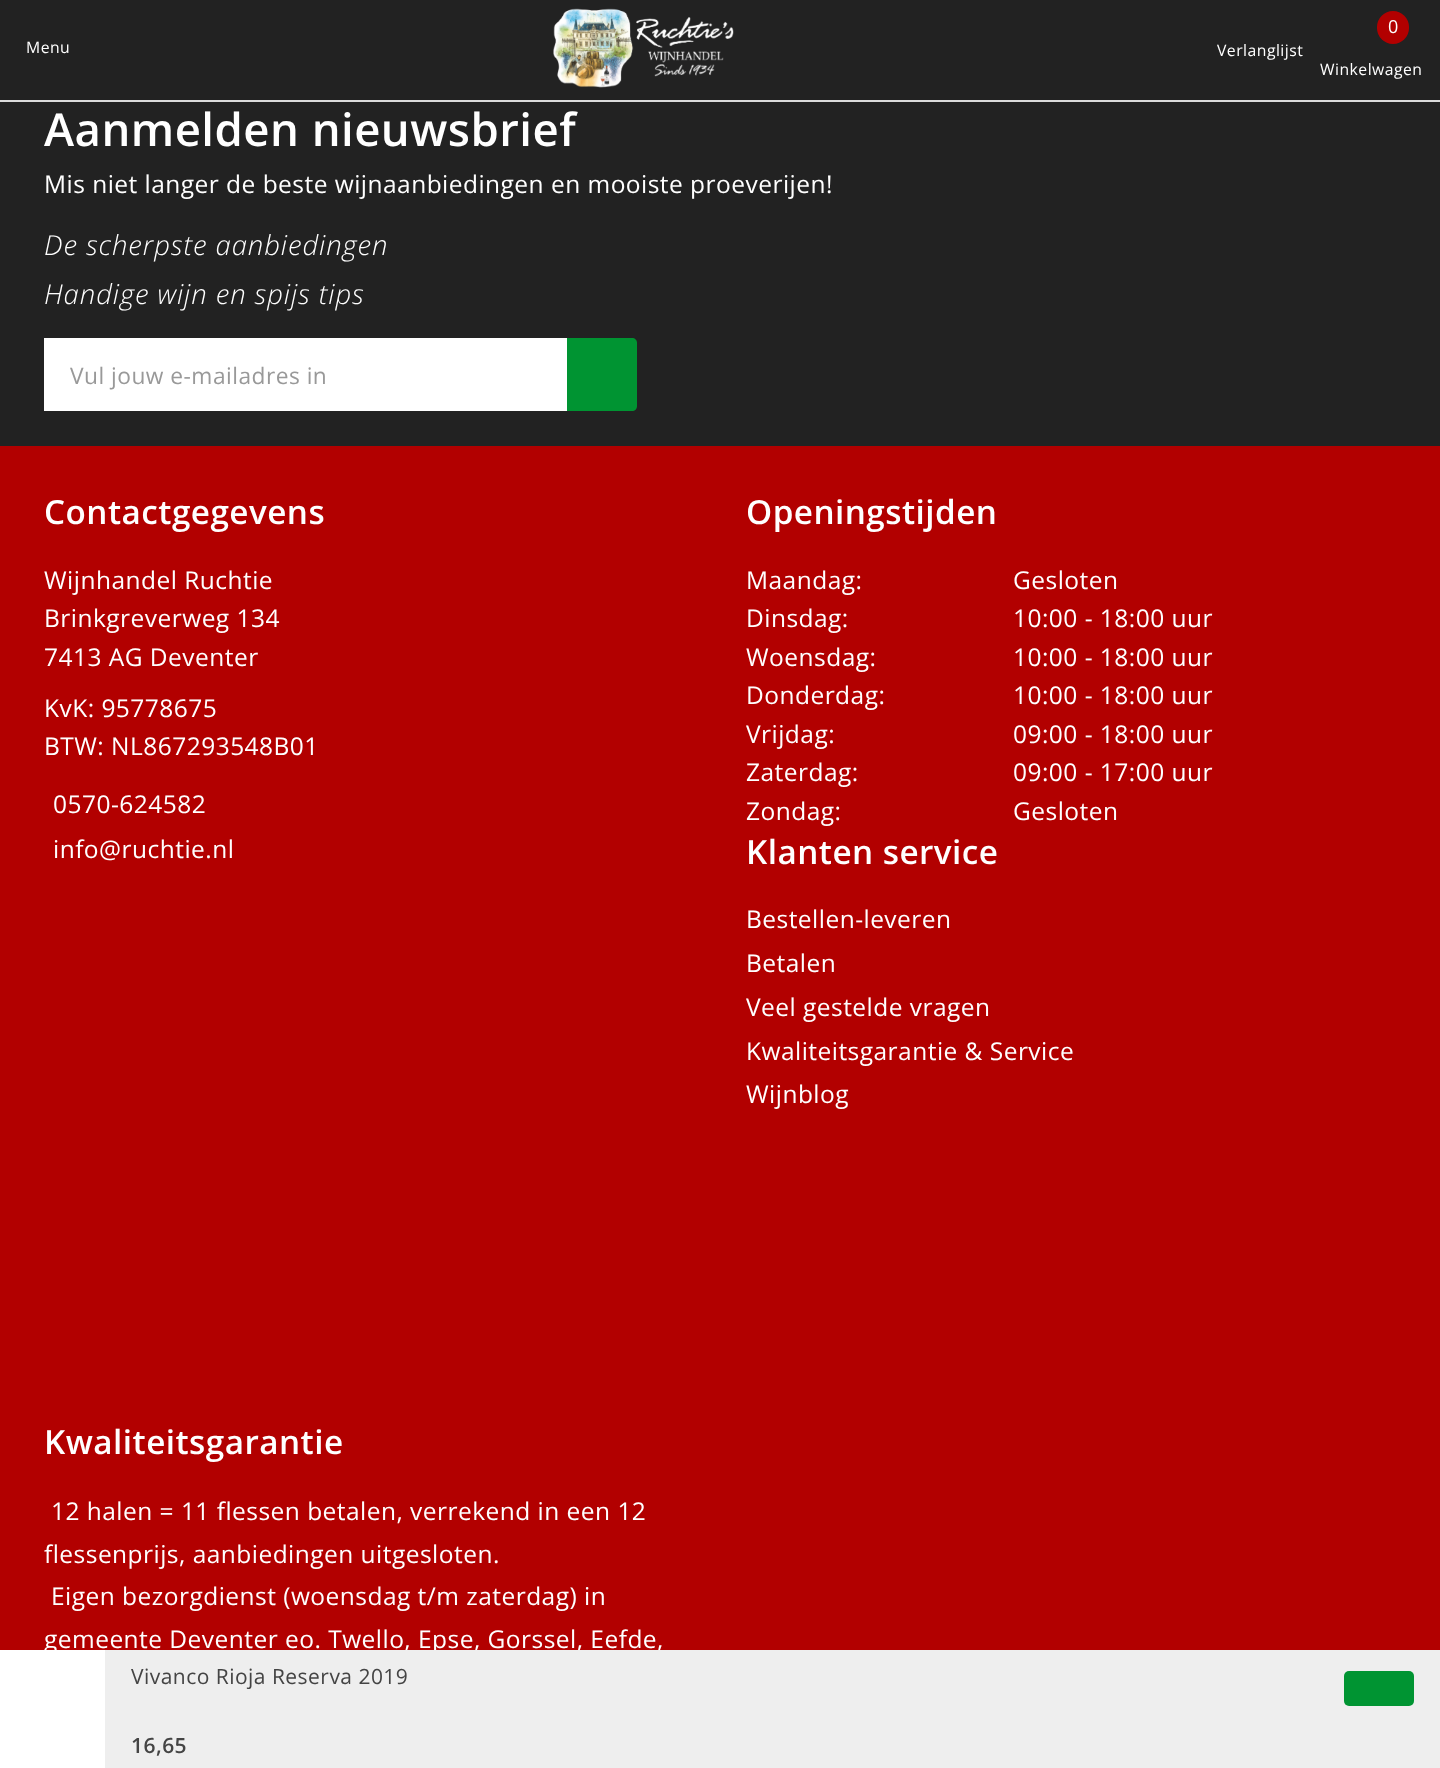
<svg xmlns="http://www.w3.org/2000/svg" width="1440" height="1768">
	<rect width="100%" height="100%" fill="#222222" />
	<rect x="0" y="100" width="1440" height="2" fill="#DBDBDB" />
	<text x="26" y="53" font-family="Open Sans" font-size="15.75" letter-spacing="0.47" fill="#FFFFFF">Menu</text>
	<image x="553" y="8" width="181" height="80" href="assets/img1.png" />
	<text x="1217" y="56" font-family="Open Sans" font-size="15.75" letter-spacing="0.47" fill="#FFFFFF">Verlanglijst</text>
	<rect x="1377" y="11" width="32" height="33" rx="16" fill="#B20000" />
	<text x="1388" y="33" font-family="Open Sans" font-size="18" letter-spacing="0.47" fill="#FFFFFF">0</text>
	<text x="1320" y="75" font-family="Open Sans" font-size="15.75" letter-spacing="0.47" fill="#FFFFFF">Winkelwagen</text>
	<text x="44" y="146" font-family="Open Sans" font-size="45.5" font-weight="600" letter-spacing="0.47" fill="#FFFFFF">Aanmelden nieuwsbrief</text>
	<text x="44" y="193" font-family="Open Sans" font-size="24.5" letter-spacing="0.47" fill="#FFFFFF">Mis niet langer de beste wijnaanbiedingen en mooiste proeverijen!</text>
	<g font-family="Open Sans" font-size="27.5" font-weight="300" font-style="italic" letter-spacing="0.9" fill="#FFFFFF">
		<text x="44" y="255">De scherpste aanbiedingen</text>
		<text x="44" y="304">Handige wijn en spijs tips</text>
	</g>
	<rect x="44" y="338" width="523" height="73" fill="#FFFFFF" />
	<text x="70" y="384" font-family="Open Sans" font-size="22.75" letter-spacing="0.47" fill="#999999">Vul jouw e-mailadres in</text>
	<path d="M567 338H632C635 338 637 340 637 343V406C637 409 635 411 632 411H567Z" fill="#009432" />
	<rect x="0" y="446" width="1440" height="1204" fill="#B20000" />
	<text x="44" y="524" font-family="Open Sans" font-size="33.25" font-weight="600" letter-spacing="0.47" fill="#FFFFFF">Contactgegevens</text>
	<g font-family="Open Sans" font-size="24.5" letter-spacing="0.47" fill="#FFFFFF">
		<text x="44" y="589">Wijnhandel Ruchtie</text>
		<text x="44" y="627">Brinkgreverweg 134</text>
		<text x="44" y="666">7413 AG Deventer</text>
		<text x="44" y="717">KvK: 95778675</text>
		<text x="44" y="755">BTW: NL867293548B01</text>
		<text x="53" y="813">0570-624582</text>
		<text x="53" y="858">info@ruchtie.nl</text>
	</g>
	<text x="746" y="524" font-family="Open Sans" font-size="33.25" font-weight="600" letter-spacing="0.47" fill="#FFFFFF">Openingstijden</text>
	<g font-family="Open Sans" font-size="24.5" letter-spacing="0.47" fill="#FFFFFF">
		<text x="746" y="589">Maandag:</text>
		<text x="1013" y="589">Gesloten</text>
		<text x="746" y="627">Dinsdag:</text>
		<text x="1013" y="627">10:00 - 18:00 uur</text>
		<text x="746" y="666">Woensdag:</text>
		<text x="1013" y="666">10:00 - 18:00 uur</text>
		<text x="746" y="704">Donderdag:</text>
		<text x="1013" y="704">10:00 - 18:00 uur</text>
		<text x="746" y="743">Vrijdag:</text>
		<text x="1013" y="743">09:00 - 18:00 uur</text>
		<text x="746" y="781">Zaterdag:</text>
		<text x="1013" y="781">09:00 - 17:00 uur</text>
		<text x="746" y="820">Zondag:</text>
		<text x="1013" y="820">Gesloten</text>
	</g>
	<text x="746" y="864" font-family="Open Sans" font-size="33.25" font-weight="600" letter-spacing="0.47" fill="#FFFFFF">Klanten service</text>
	<g font-family="Open Sans" font-size="24.5" letter-spacing="0.47" fill="#FFFFFF">
		<text x="746" y="928">Bestellen-leveren</text>
		<text x="746" y="972">Betalen</text>
		<text x="746" y="1016">Veel gestelde vragen</text>
		<text x="746" y="1060">Kwaliteitsgarantie &amp; Service</text>
		<text x="746" y="1103">Wijnblog</text>
	</g>
	<text x="44" y="1454" font-family="Open Sans" font-size="33.25" font-weight="600" letter-spacing="0.47" fill="#FFFFFF">Kwaliteitsgarantie</text>
	<g font-family="Open Sans" font-size="24.5" letter-spacing="0.47" fill="#FFFFFF">
		<text x="51" y="1520">12 halen = 11 flessen betalen, verrekend in een 12</text>
		<text x="44" y="1563">flessenprijs, aanbiedingen uitgesloten.</text>
		<text x="51" y="1605">Eigen bezorgdienst (woensdag t/m zaterdag) in</text>
		<text x="44" y="1648">gemeente Deventer eo. Twello, Epse, Gorssel, Eefde,</text>
	</g>
	<rect x="105" y="1650" width="1335" height="118" fill="#EEEEEE" />
	<rect x="0" y="1650" width="105" height="118" fill="#FFFFFF" />
	<text x="131" y="1684" font-family="Open Sans" font-size="21" letter-spacing="0.47" fill="#444444">Vivanco Rioja Reserva 2019</text>
	<text x="131" y="1753" font-family="Open Sans" font-size="21" font-weight="600" letter-spacing="0.47" fill="#444444">16,65</text>
	<rect x="1344" y="1671" width="70" height="35" rx="5" fill="#009432" />
</svg>
